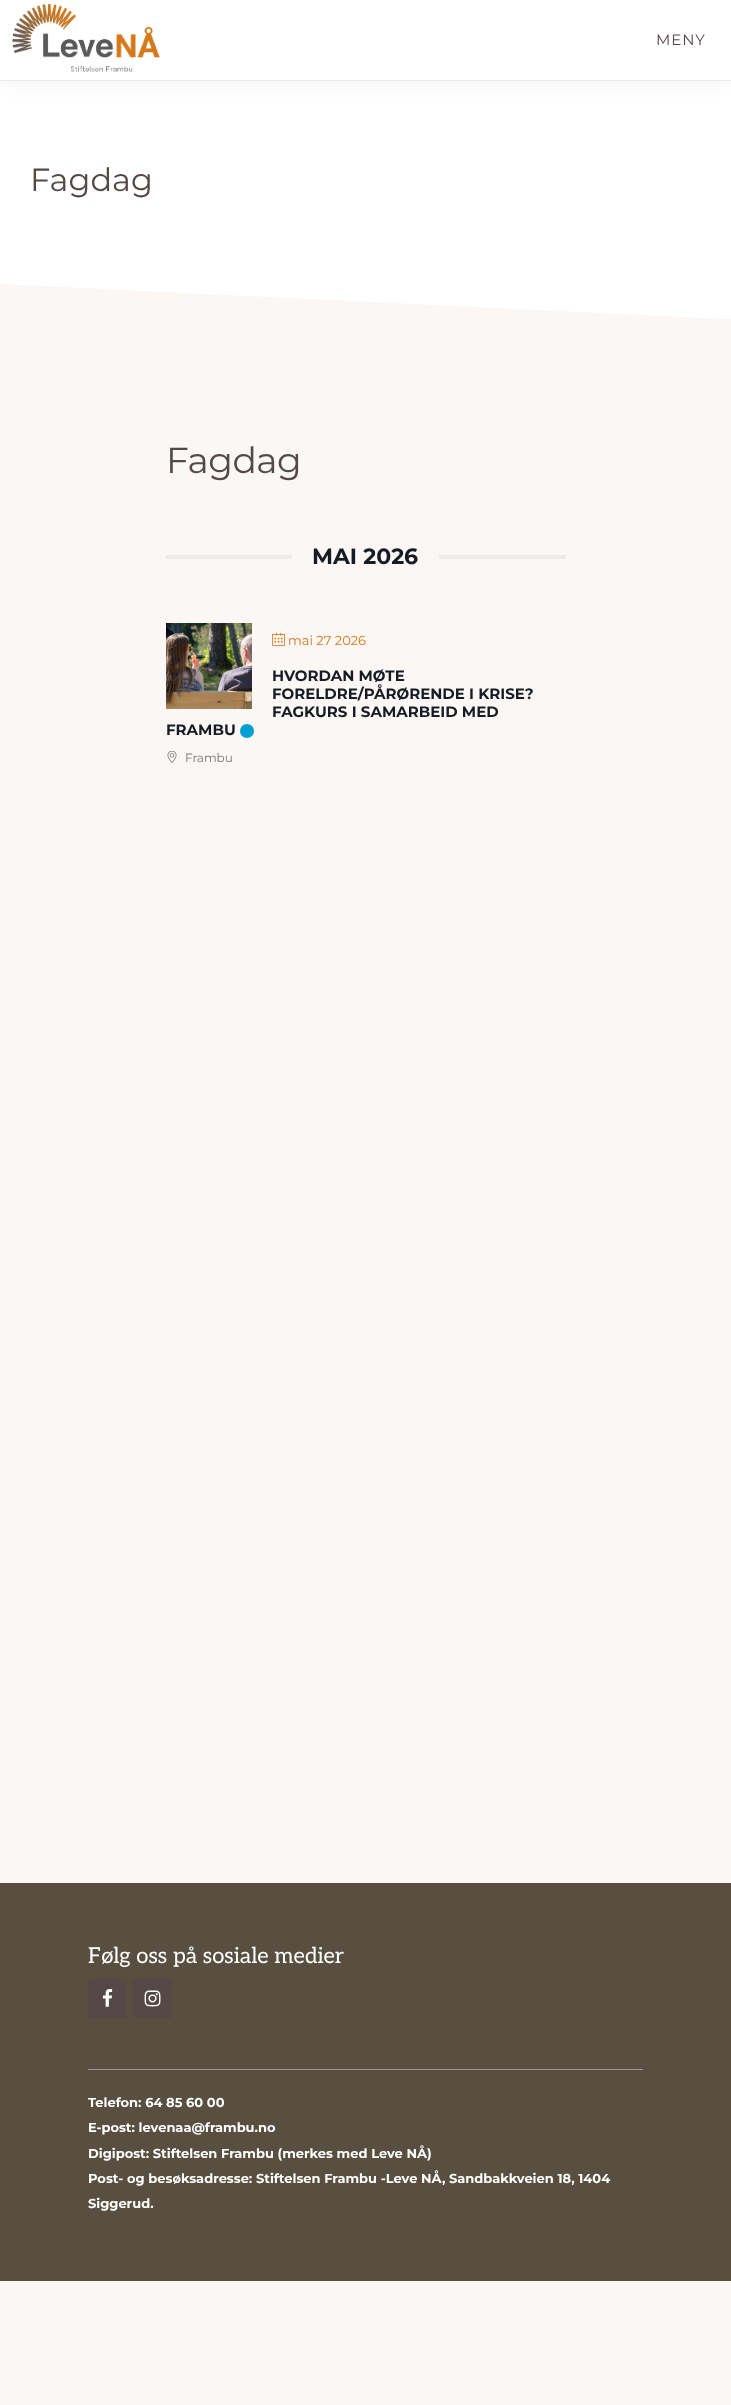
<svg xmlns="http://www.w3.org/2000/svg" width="731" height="2405">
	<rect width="100%" height="100%" fill="#FAF7F4" />
	<path d="M0 81V284L723 319H731V81Z" fill="#FFFFFF" />
	<rect x="0" y="0" width="731" height="81" fill="#000000" fill-opacity="0.05" filter="blur(10px)" />
	<rect x="0" y="0" width="731" height="80" fill="#FFFFFF" />
	<rect x="0" y="80" width="731" height="1" fill="#EEE9E3" />
	<image x="12" y="4" width="148" height="68" href="assets/img1.png" />
	<text x="656" y="45" font-family="Montserrat" font-size="15" letter-spacing="1" fill="#554948">MENY</text>
	<text x="30" y="191" font-family="Montserrat" font-size="32" fill="#554948">Fagdag</text>
	<text x="166" y="473" font-family="Montserrat" font-size="36" letter-spacing="-0.5" fill="#554948">Fagdag</text>
	<rect x="166" y="555" width="126" height="4" fill="#EBEBEB" />
	<text x="312" y="564" font-family="Montserrat" font-size="22" font-weight="700" fill="#171C24">MAI 2026</text>
	<rect x="439" y="555" width="127" height="4" fill="#EBEBEB" />
	<image x="166" y="623" width="86" height="86" href="assets/img2.png" />
	<image x="272" y="632" width="13" height="14" href="assets/img3.png" />
	<text x="288" y="645" font-family="Montserrat" font-size="13" fill="#D8761C">mai 27 2026</text>
	<g font-family="Montserrat" font-size="15" font-weight="700" fill="#171C24">
		<text x="272" y="681">HVORDAN MØTE</text>
		<text x="272" y="699">FORELDRE/PÅRØRENDE I KRISE?</text>
		<text x="272" y="717">FAGKURS I SAMARBEID MED</text>
		<text x="166" y="735">FRAMBU</text>
	</g>
	<circle cx="247" cy="731" r="7" fill="#00A0D2" />
	<image x="167" y="751" width="10" height="12" href="assets/img4.png" />
	<text x="185" y="762" font-family="Montserrat" font-size="12" fill="#777777">Frambu</text>
	<rect x="0" y="1883" width="731" height="398" fill="#594F40" />
	<rect x="88" y="2069" width="555" height="1" fill="#9B958C" />
	<text x="88" y="1963" font-family="Aleo" font-size="22" fill="#FFFFFF">Følg oss på sosiale medier</text>
	<rect x="88" y="1979" width="39" height="39" rx="2" fill="#554948" />
	<image x="102" y="1989" width="11" height="18" href="assets/img5.png" />
	<rect x="133" y="1979" width="39" height="39" rx="2" fill="#554948" />
	<image x="144" y="1990" width="17" height="17" href="assets/img6.png" />
	<g font-family="Montserrat" font-size="13" font-weight="700" fill="#FFFFFF">
		<text x="88" y="2107">Telefon: 64 85 60 00</text>
		<text x="88" y="2132">E-post: levenaa@frambu.no</text>
		<text x="88" y="2158">Digipost: Stiftelsen Frambu (merkes med Leve NÅ)</text>
		<text x="88" y="2183">Post- og besøksadresse: Stiftelsen Frambu -Leve NÅ, Sandbakkveien 18, 1404</text>
		<text x="88" y="2208">Siggerud.</text>
	</g>
</svg>
